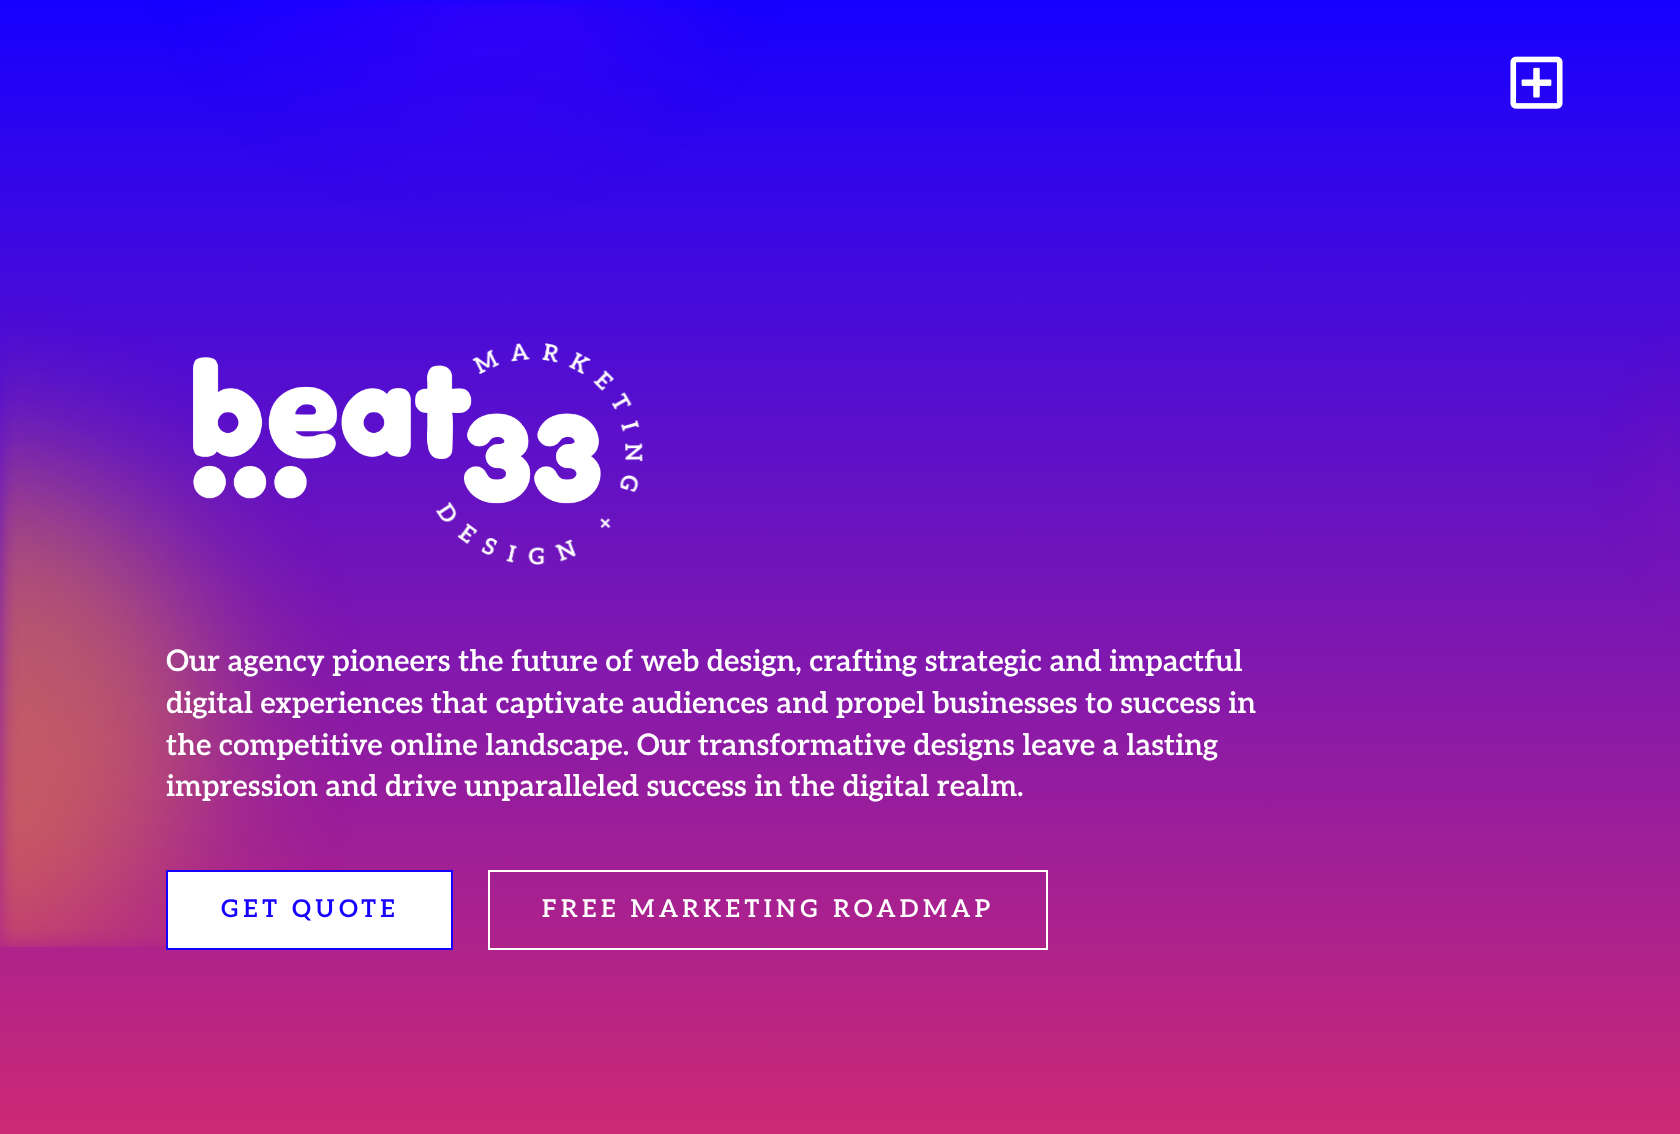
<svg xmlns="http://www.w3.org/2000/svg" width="1680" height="1134">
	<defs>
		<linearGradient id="g1" gradientUnits="userSpaceOnUse" x1="840" y1="0" x2="840" y2="1134"><stop offset="0" stop-color="#1600FF" /><stop offset="1" stop-color="#CD2974" /></linearGradient>
	</defs>
	<rect width="100%" height="100%" fill="#FFFFFF" />
	<rect x="0" y="0" width="1680" height="1134" fill="url(#g1)" />
	<image x="0" y="0" width="1680" height="947" href="assets/img1.png" />
	<image x="1510" y="56" width="53" height="53" href="assets/img2.png" />
	<image x="435" y="343" width="209" height="222" href="assets/img3.png" />
	<image x="193" y="357" width="408" height="147" href="assets/img4.png" />
	<g font-family="Aleo" font-size="29.75" font-weight="600" fill="#FFFFFF">
		<text x="166" y="671">Our agency pioneers the future of web design, crafting strategic and impactful</text>
		<text x="166" y="713">digital experiences that captivate audiences and propel businesses to success in</text>
		<text x="166" y="755">the competitive online landscape. Our transformative designs leave a lasting</text>
		<text x="166" y="796">impression and drive unparalleled success in the digital realm.</text>
	</g>
	<rect x="167" y="871" width="285" height="78" fill="#FFFFFF" stroke="#1600FF" stroke-width="2" />
	<text x="221" y="917" font-family="Aleo" font-size="24.5" font-weight="600" letter-spacing="4.4" fill="#1600FF">GET QUOTE</text>
	<rect x="489" y="871" width="558" height="78" fill="none" stroke="#FFFFFF" stroke-width="2" />
	<text x="542" y="917" font-family="Aleo" font-size="24.5" font-weight="600" letter-spacing="4.4" fill="#FFFFFF">FREE MARKETING ROADMAP</text>
</svg>
